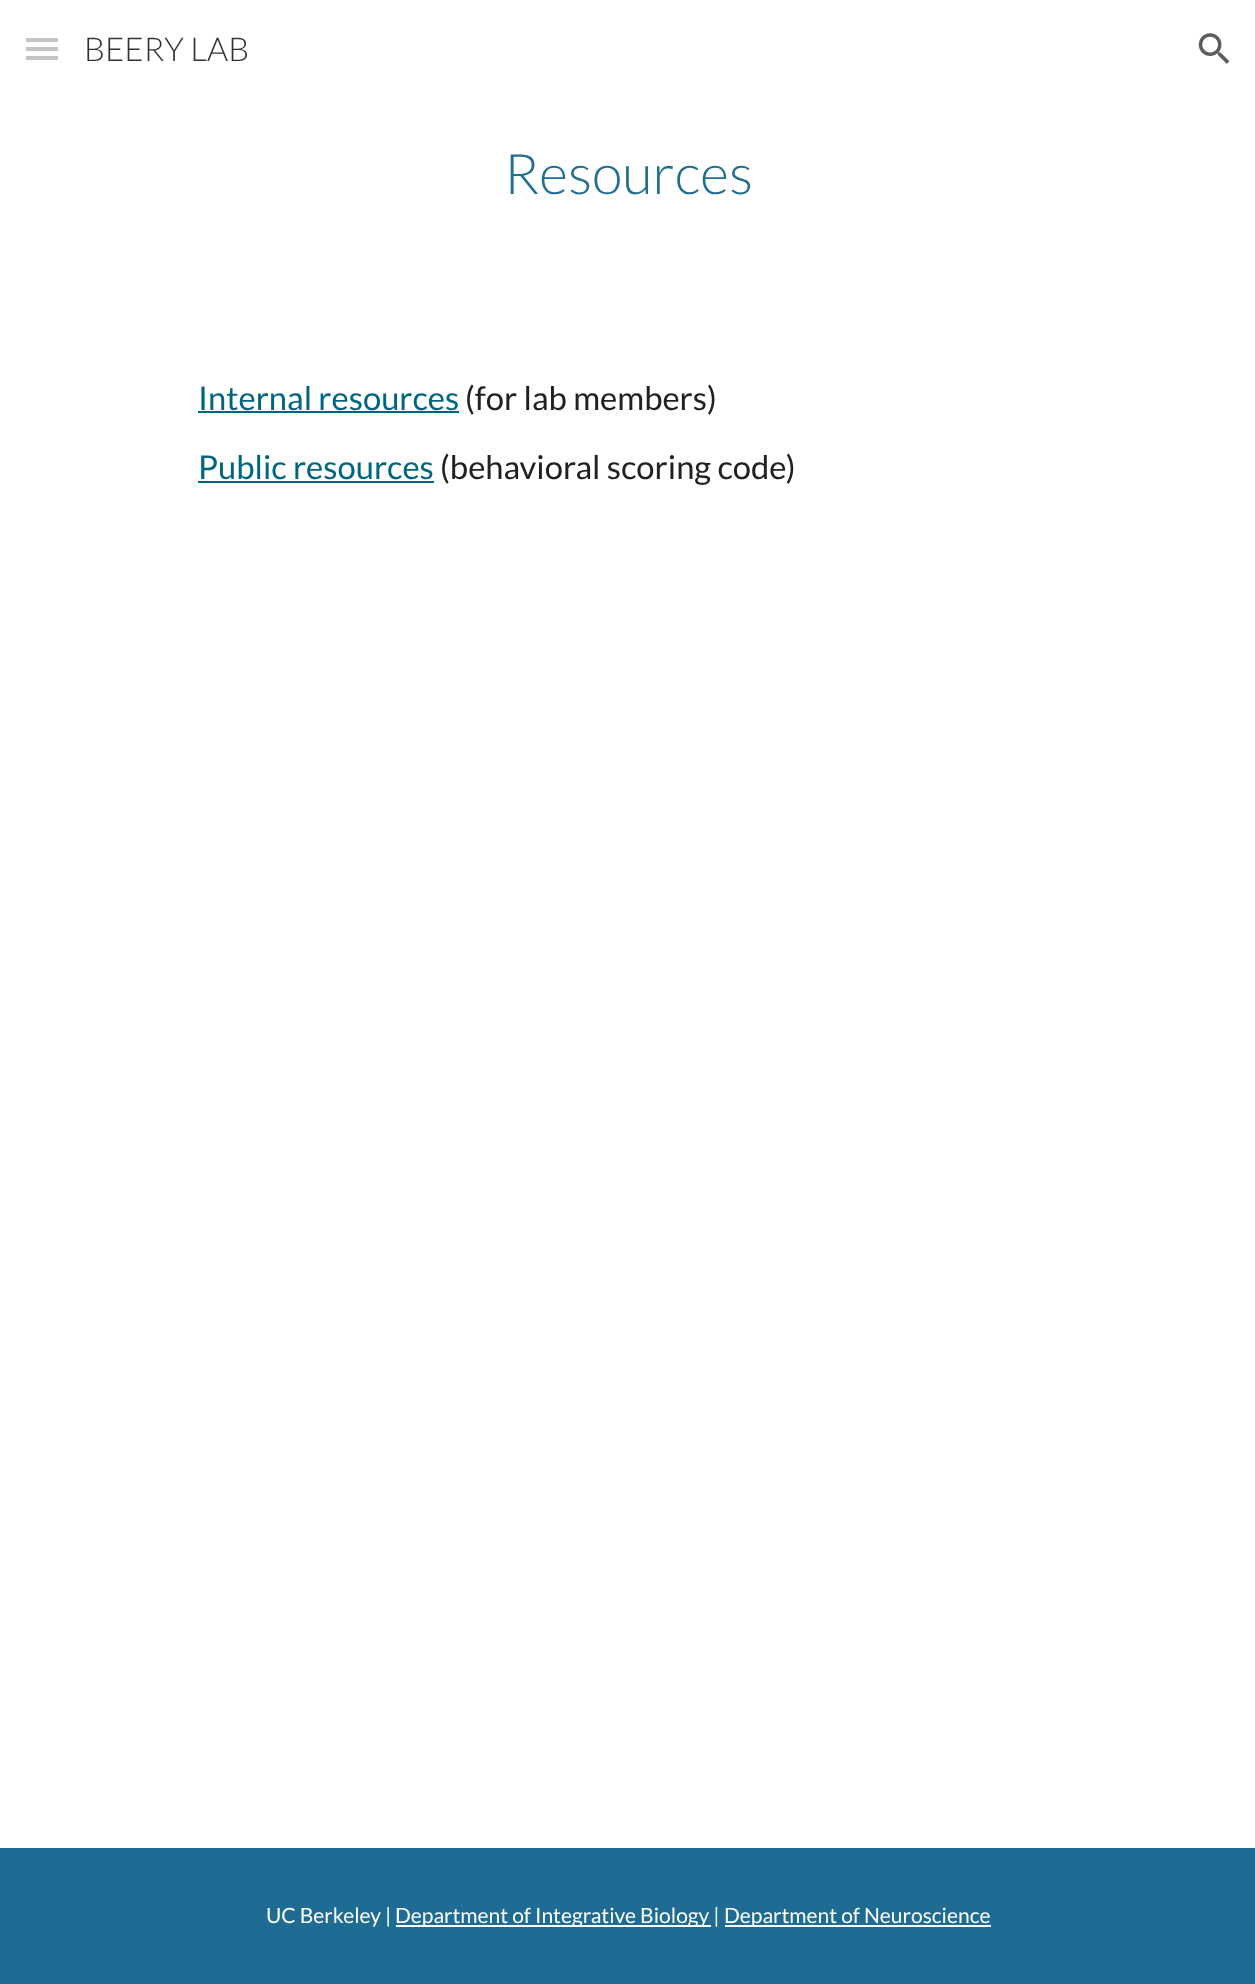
<svg xmlns="http://www.w3.org/2000/svg" width="1255" height="1984">
	<rect width="100%" height="100%" fill="#FFFFFF" />
	<rect x="26" y="38" width="32" height="4" fill="#C4C4C4" />
	<rect x="26" y="47" width="32" height="4" fill="#C4C4C4" />
	<rect x="26" y="56" width="32" height="4" fill="#C4C4C4" />
	<text x="84" y="61" font-family="Lato" font-size="32.75" font-weight="300" fill="#333333">BEERY LAB</text>
	<image x="1198" y="33" width="32" height="31" href="assets/img1.png" />
	<text x="504" y="194" font-family="Lato" font-size="56" font-weight="300" fill="#226E93">Resources</text>
	<text x="198" y="410" font-family="Lato" font-size="32.75" fill="#006580">Internal resources</text>
	<rect x="198" y="411" width="261" height="2" fill="#006580" />
	<text x="465" y="410" font-family="Lato" font-size="32.75" fill="#212121">(for lab members)</text>
	<text x="198" y="479" font-family="Lato" font-size="32.75" fill="#006580">Public resources</text>
	<rect x="198" y="481" width="236" height="2" fill="#006580" />
	<text x="440" y="479" font-family="Lato" font-size="32.75" fill="#212121">(behavioral scoring code)</text>
	<rect x="0" y="1848" width="1255" height="136" fill="#1E6C93" />
	<text x="266" y="1923" font-family="Lato" font-size="21" fill="#FFFFFF">UC Berkeley |</text>
	<rect x="396" y="1925" width="315" height="2" fill="#FFFFFF" />
	<text x="395" y="1923" font-family="Lato" font-size="21" fill="#FFFFFF">Department of Integrative Biology |</text>
	<rect x="725" y="1925" width="266" height="2" fill="#FFFFFF" />
	<text x="724" y="1923" font-family="Lato" font-size="21" fill="#FFFFFF">Department of Neuroscience</text>
</svg>
